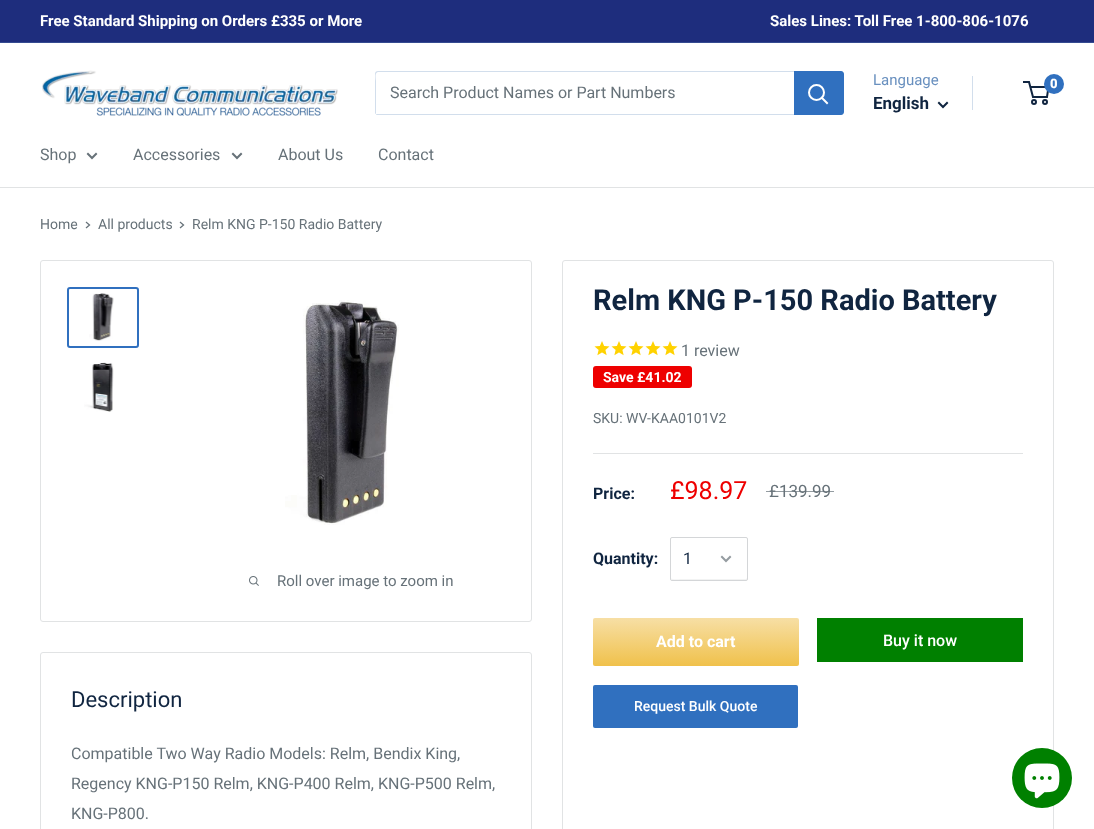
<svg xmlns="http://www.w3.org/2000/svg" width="1094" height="829">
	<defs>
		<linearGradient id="g1" gradientUnits="userSpaceOnUse" x1="696" y1="618" x2="696" y2="666"><stop offset="0" stop-color="#F7DFA5" /><stop offset="1" stop-color="#F0C14B" /></linearGradient>
	</defs>
	<rect width="100%" height="100%" fill="#FFFFFF" />
	<rect x="0" y="0" width="1094" height="42" fill="#1E2D7D" />
	<rect x="0" y="42" width="1094" height="1" fill="#354B91" />
	<g font-family="Roboto" font-size="15" font-weight="700" fill="#FFFFFF">
		<text x="40" y="26">Free Standard Shipping on Orders £335 or More</text>
		<text x="770" y="26">Sales Lines: Toll Free 1-800-806-1076</text>
	</g>
	<image x="42" y="70" width="296" height="46" href="assets/img1.png" />
	<path d="M376 114C376 115 377 115 378 115H841C843 115 844 114 844 112V74C844 73 844 72 843 72V105C843 107 845 114 840 114Z" fill="#D2DEEC" />
	<path d="M379 72H843C843 71 842 71 841 71H378C376 71 375 72 375 74V112C375 113 375 114 376 114V81C376 79 374 72 379 72Z" fill="#D2DEEC" />
	<text x="390" y="98" font-family="Roboto" font-size="16" fill="#677279">Search Product Names or Part Numbers</text>
	<path d="M794 71H841C842.5 71 844 72.5 844 74V112C844 113.5 842.5 115 841 115H794Z" fill="#3070BF" />
	<path d="M827 103L822 98" fill="none" stroke="#FFFFFF" stroke-width="2" stroke-linecap="square" />
	<circle cx="816.5" cy="92.5" r="7.5" fill="none" stroke="#FFFFFF" stroke-width="2" />
	<text x="873" y="85" font-family="Roboto" font-size="15" fill="#6990BF">Language</text>
	<rect x="972" y="76" width="1" height="34" fill="#D2DEEC" />
	<text x="873" y="109" font-family="Roboto" font-size="17" font-weight="700" fill="#102540">English</text>
	<path d="M947 103L943 107L939 103" fill="none" stroke="#102540" stroke-width="2" stroke-linecap="square" />
	<circle cx="1034" cy="102" r="2" fill="none" stroke="#102540" stroke-width="2" />
	<circle cx="1045" cy="102" r="2" fill="none" stroke="#102540" stroke-width="2" />
	<path d="M1030.5 87H1048.5L1047 97H1033L1029 82H1023" fill="none" stroke="#102540" stroke-width="2" />
	<circle cx="1054" cy="84" r="10" fill="#3070BF" />
	<text x="1050" y="88" font-family="Roboto" font-size="13" font-weight="900" fill="#FFFFFF">0</text>
	<rect x="0" y="187" width="1094" height="1" fill="#E1E3E4" />
	<text x="40" y="160" font-family="Roboto" font-size="16" fill="#677279">Shop</text>
	<path d="M96 154L92 158L88 154" fill="none" stroke="#677279" stroke-width="2" stroke-linecap="square" />
	<text x="133" y="160" font-family="Roboto" font-size="16" fill="#677279">Accessories</text>
	<path d="M241 154L237 158L233 154" fill="none" stroke="#677279" stroke-width="2" stroke-linecap="square" />
	<g font-family="Roboto" font-size="16" fill="#677279">
		<text x="278" y="160">About Us</text>
		<text x="378" y="160">Contact</text>
	</g>
	<text x="40" y="229" font-family="Roboto" font-size="14" fill="#677279">Home</text>
	<path d="M86.5 222.5L89.5 225L86.5 227.5" fill="none" stroke="#677279" stroke-width="1.3" stroke-linecap="square" />
	<text x="98" y="229" font-family="Roboto" font-size="14" fill="#677279">All products</text>
	<path d="M180.5 222.5L183.5 225L180.5 227.5" fill="none" stroke="#677279" stroke-width="1.3" stroke-linecap="square" />
	<text x="192" y="229" font-family="Roboto" font-size="14" fill="#677279">Relm KNG P-150 Radio Battery</text>
	<rect x="40.5" y="260.5" width="491" height="361" rx="2.5" fill="none" stroke="#E1E3E4" />
	<rect x="68" y="288" width="70" height="59" rx="2" fill="none" stroke="#3070BF" stroke-width="2" />
	<image x="89" y="293" width="25" height="48" href="assets/img2.png" />
	<image x="84" y="362" width="30" height="50" href="assets/img3.png" />
	<image x="285" y="300" width="114" height="225" href="assets/img4.png" />
	<image x="249" y="576" width="10" height="10" href="assets/img5.png" />
	<text x="277" y="586" font-family="Roboto" font-size="15" fill="#677279">Roll over image to zoom in</text>
	<rect x="562.5" y="260.5" width="491" height="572" rx="2.5" fill="none" stroke="#E1E3E4" />
	<text x="593" y="310" font-family="Roboto" font-size="29" font-weight="700" fill="#102540">Relm KNG P-150 Radio Battery</text>
	<image x="594" y="341" width="16" height="15" href="assets/img6.png" />
	<image x="611" y="341" width="16" height="15" href="assets/img6.png" />
	<image x="628" y="341" width="16" height="15" href="assets/img6.png" />
	<image x="645" y="341" width="16" height="15" href="assets/img6.png" />
	<image x="662" y="341" width="16" height="15" href="assets/img6.png" />
	<text x="681" y="356" font-family="Roboto" font-size="16" fill="#677279">1 review</text>
	<rect x="593" y="366" width="99" height="22" rx="3" fill="#EE0000" />
	<text x="603" y="382" font-family="Roboto" font-size="14" font-weight="700" fill="#FFFFFF">Save £41.02</text>
	<text x="593" y="423" font-family="Roboto" font-size="14" fill="#677279">SKU: WV-KAA0101V2</text>
	<rect x="593" y="453" width="430" height="1" fill="#E1E3E4" />
	<text x="593" y="499" font-family="Roboto" font-size="16" font-weight="700" fill="#102540">Price:</text>
	<text x="670" y="499" font-family="Roboto" font-size="25" fill="#EE0000">£98.97</text>
	<text x="769" y="497" font-family="Roboto" font-size="17" fill="#677279">£139.99</text>
	<rect x="766" y="491" width="68" height="1" fill="#677279" fill-opacity="0.7" />
	<text x="593" y="564" font-family="Roboto" font-size="16" font-weight="700" fill="#102540">Quantity:</text>
	<path d="M671 578L672 580H746C747 580 747 579 747 578L746 579H681C679 579 672 580 671 578Z" fill="#F2F3F3" />
	<rect x="670.5" y="537.5" width="77" height="43" rx="1.5" fill="none" stroke="#D4D6D8" />
	<text x="683" y="564" font-family="Roboto" font-size="16" fill="#102540">1</text>
	<path d="M730 557L726 561L722 557" fill="none" stroke="#959CA1" stroke-width="2" stroke-linecap="square" />
	<rect x="593" y="618" width="206" height="48" rx="2" fill="url(#g1)" />
	<text x="656" y="647" font-family="Roboto" font-size="16" font-weight="700" fill="#FFFFFF">Add to cart</text>
	<rect x="817" y="618" width="206" height="44" fill="#008000" />
	<text x="883" y="646" font-family="Roboto" font-size="16" font-weight="500" fill="#FFFFFF">Buy it now</text>
	<rect x="593" y="685" width="205" height="43" rx="2" fill="#3070BF" />
	<text x="634" y="711" font-family="Roboto" font-size="14" font-weight="500" fill="#FFFFFF">Request Bulk Quote</text>
	<rect x="40.5" y="652.5" width="491" height="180" rx="2.5" fill="none" stroke="#E1E3E4" />
	<text x="71" y="707" font-family="Roboto" font-size="22" fill="#102540">Description</text>
	<g font-family="Roboto" font-size="16" fill="#677279">
		<text x="71" y="759">Compatible Two Way Radio Models: Relm, Bendix King,</text>
		<text x="71" y="789">Regency KNG-P150 Relm, KNG-P400 Relm, KNG-P500 Relm,</text>
		<text x="71" y="819">KNG-P800.</text>
	</g>
	<circle cx="1042" cy="778" r="30" fill="#008000" />
	<image x="1024" y="763" width="36" height="36" href="assets/img7.png" />
</svg>
